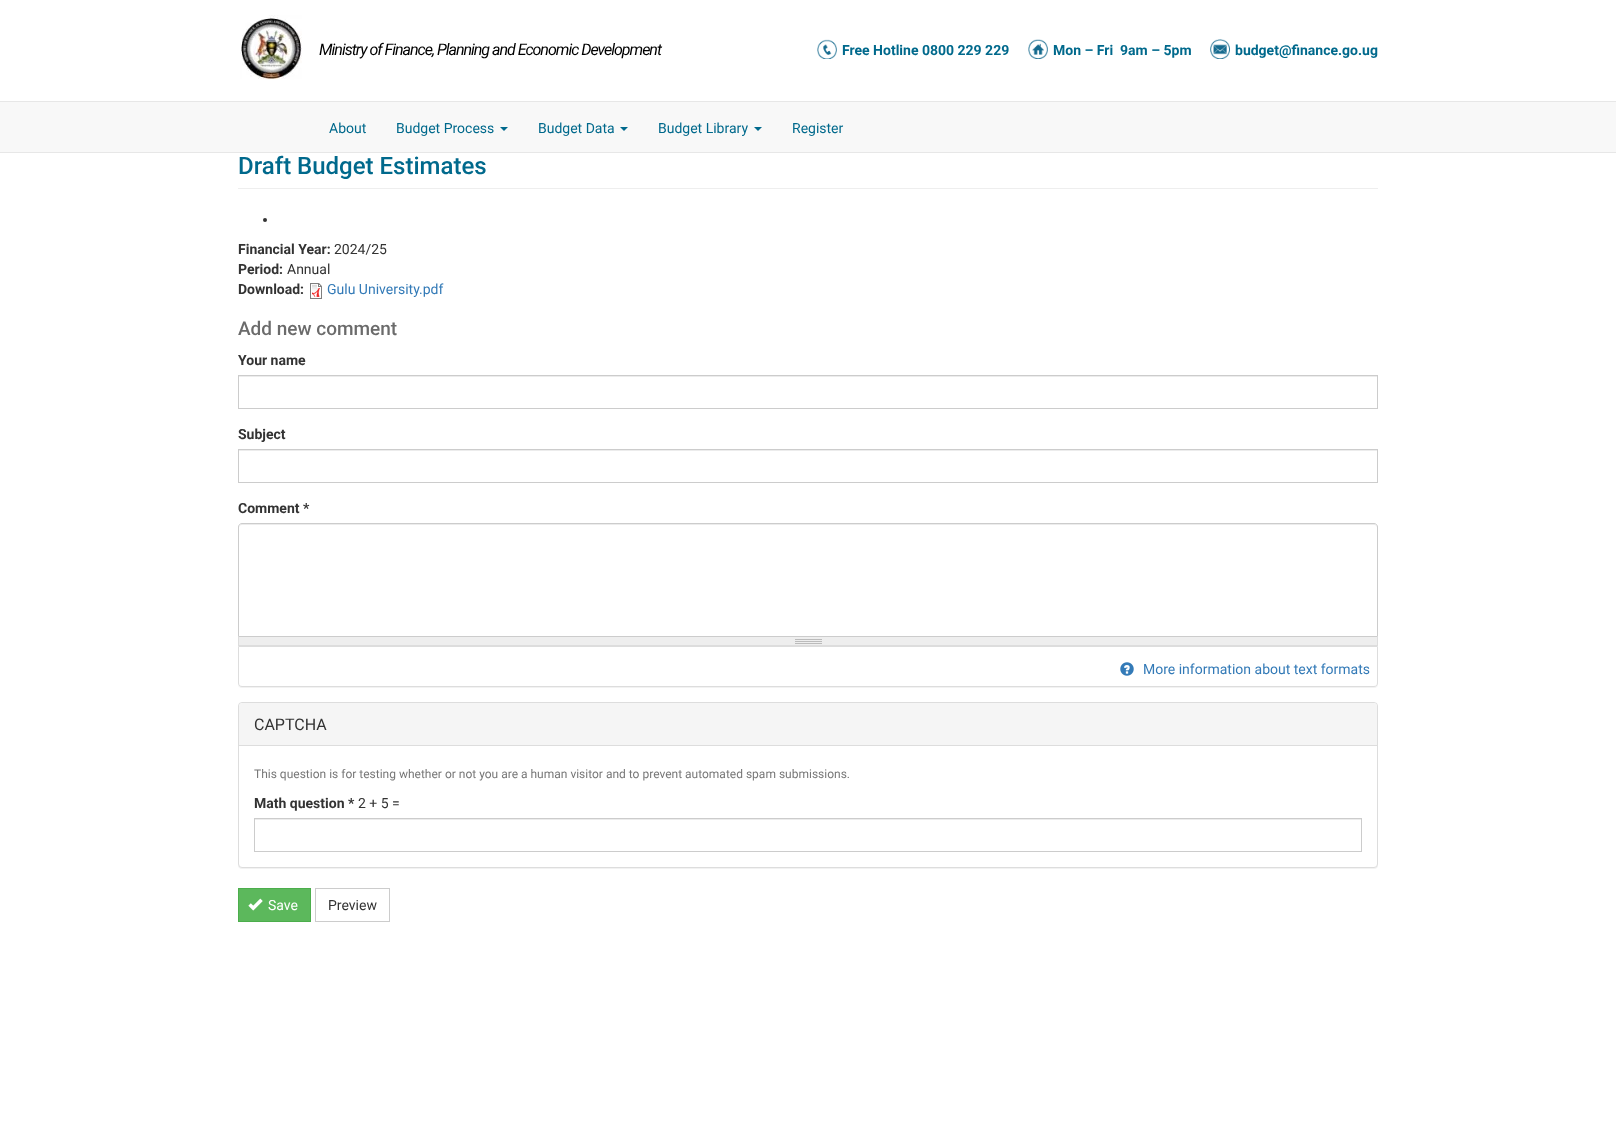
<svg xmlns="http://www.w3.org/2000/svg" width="1616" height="1139">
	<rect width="100%" height="100%" fill="#FFFFFF" />
	<image x="240" y="15" width="62" height="65" href="assets/img1.png" />
	<text x="319" y="55" font-family="Roboto" font-size="16" font-style="italic" letter-spacing="-1" fill="#000000">Ministry of Finance, Planning and Economic Development</text>
	<image x="817" y="39" width="20" height="20" href="assets/img2.png" />
	<text x="842" y="55" font-family="Roboto" font-size="14" font-weight="700" fill="#00698C">Free Hotline 0800 229 229</text>
	<image x="1028" y="39" width="20" height="20" href="assets/img3.png" />
	<text x="1053" y="55" font-family="Roboto" font-size="14" font-weight="700" fill="#00698C" xml:space="preserve">Mon – Fri  9am – 5pm</text>
	<image x="1210" y="39" width="20" height="20" href="assets/img4.png" />
	<text x="1235" y="55" font-family="Roboto" font-size="14" font-weight="700" fill="#00698C">budget@finance.go.ug</text>
	<rect x="0" y="102" width="1616" height="50" fill="#F8F8F8" />
	<rect x="0" y="101" width="1616" height="1" fill="#E7E7E7" />
	<rect x="0" y="152" width="1616" height="1" fill="#E7E7E7" />
	<g font-family="Roboto" font-size="14" fill="#00698C">
		<text x="329" y="133">About</text>
		<text x="396" y="133">Budget Process</text>
	</g>
	<path d="M500 127H508L504 131Z" fill="#00698C" />
	<text x="538" y="133" font-family="Roboto" font-size="14" fill="#00698C">Budget Data</text>
	<path d="M620 127H628L624 131Z" fill="#00698C" />
	<text x="658" y="133" font-family="Roboto" font-size="14" fill="#00698C">Budget Library</text>
	<path d="M754 127H762L758 131Z" fill="#00698C" />
	<text x="792" y="133" font-family="Roboto" font-size="14" fill="#00698C">Register</text>
	<rect x="238" y="188" width="1140" height="1" fill="#EEEEEE" />
	<text x="238" y="174" font-family="Roboto" font-size="24" font-weight="500" fill="#00698C">Draft Budget Estimates</text>
	<circle cx="265" cy="220" r="2" fill="#333333" />
	<text x="238" y="254" font-family="Roboto" font-size="14" font-weight="700" fill="#333333">Financial Year:</text>
	<text x="334" y="254" font-family="Roboto" font-size="14" fill="#333333">2024/25</text>
	<text x="238" y="274" font-family="Roboto" font-size="14" font-weight="700" fill="#333333">Period:</text>
	<text x="287" y="274" font-family="Roboto" font-size="14" fill="#333333">Annual</text>
	<text x="238" y="294" font-family="Roboto" font-size="14" font-weight="700" fill="#333333">Download:</text>
	<image x="310" y="283" width="12" height="16" href="assets/img5.png" />
	<text x="327" y="294" font-family="Roboto" font-size="14" fill="#337AB7">Gulu University.pdf</text>
	<text x="238" y="335" font-family="Roboto" font-size="19" font-weight="500" fill="#6B6B6B">Add new comment</text>
	<text x="238" y="365" font-family="Roboto" font-size="14" font-weight="700" fill="#333333">Your name</text>
	<rect x="239" y="376" width="1138" height="1" fill="#ECECEC" />
	<rect x="238.5" y="375.5" width="1139" height="33" fill="none" stroke="#CCCCCC" />
	<text x="238" y="439" font-family="Roboto" font-size="14" font-weight="700" fill="#333333">Subject</text>
	<rect x="239" y="450" width="1138" height="1" fill="#ECECEC" />
	<rect x="238.5" y="449.5" width="1139" height="33" fill="none" stroke="#CCCCCC" />
	<text x="238" y="513" font-family="Roboto" font-size="14" font-weight="700" fill="#333333">Comment *</text>
	<path d="M242 525H1374C1376 525 1377 526 1377 528V527C1377 525 1376 524 1374 524H242C240 524 239 525 239 527V528C239 526 240 525 242 525Z" fill="#ECECEC" />
	<path d="M242 523.5H1374C1376 523.5 1377.5 525 1377.5 527V636.5H238.5V527C238.5 525 240 523.5 242 523.5Z" fill="none" stroke="#CCCCCC" />
	<rect x="238" y="647" width="1140" height="41" rx="4" fill="#000000" fill-opacity="0.05" filter="blur(0.5px)" />
	<rect x="239" y="637" width="1138" height="8" fill="#EEEEEE" />
	<image x="795" y="639" width="27" height="5" href="assets/img6.png" />
	<rect x="1377" y="637" width="1" height="9" fill="#DDDDDD" />
	<rect x="238" y="645" width="1140" height="1" fill="#DDDDDD" />
	<rect x="238" y="637" width="1" height="9" fill="#DDDDDD" />
	<path d="M238.5 646.5H1377.5V683C1377.5 685 1376 686.5 1374 686.5H242C240 686.5 238.5 685 238.5 683Z" fill="#FFFFFF" stroke="#DDDDDD" />
	<image x="1120" y="662" width="14" height="14" href="assets/img7.png" />
	<text x="1143" y="674" font-family="Roboto" font-size="14" fill="#337AB7">More information about text formats</text>
	<rect x="238" y="703" width="1140" height="166" rx="4" fill="#000000" fill-opacity="0.05" filter="blur(0.5px)" />
	<rect x="238.5" y="702.5" width="1139" height="165" rx="3.5" fill="#FFFFFF" stroke="#DDDDDD" />
	<path d="M242 703H1374C1375.5 703 1377 704.5 1377 706V746H239V706C239 704.5 240.5 703 242 703Z" fill="#F5F5F5" />
	<rect x="239" y="745" width="1138" height="1" fill="#DDDDDD" />
	<text x="254" y="730" font-family="Roboto" font-size="16" fill="#333333">CAPTCHA</text>
	<text x="254" y="778" font-family="Roboto" font-size="12" fill="#777777">This question is for testing whether or not you are a human visitor and to prevent automated spam submissions.</text>
	<text x="254" y="808" font-family="Roboto" font-size="14" font-weight="700" fill="#333333">Math question *</text>
	<text x="358" y="808" font-family="Roboto" font-size="14" fill="#333333">2 + 5 =</text>
	<rect x="255" y="819" width="1106" height="1" fill="#ECECEC" />
	<rect x="254.5" y="818.5" width="1107" height="33" fill="none" stroke="#CCCCCC" />
	<rect x="238.5" y="888.5" width="72" height="33" fill="#5CB85C" stroke="#4CAE4C" />
	<image x="248" y="898" width="15" height="13" href="assets/img8.png" />
	<text x="268" y="910" font-family="Roboto" font-size="14" fill="#FFFFFF">Save</text>
	<rect x="315.5" y="888.5" width="74" height="33" fill="none" stroke="#CCCCCC" />
	<text x="328" y="910" font-family="Roboto" font-size="14" fill="#333333">Preview</text>
</svg>
